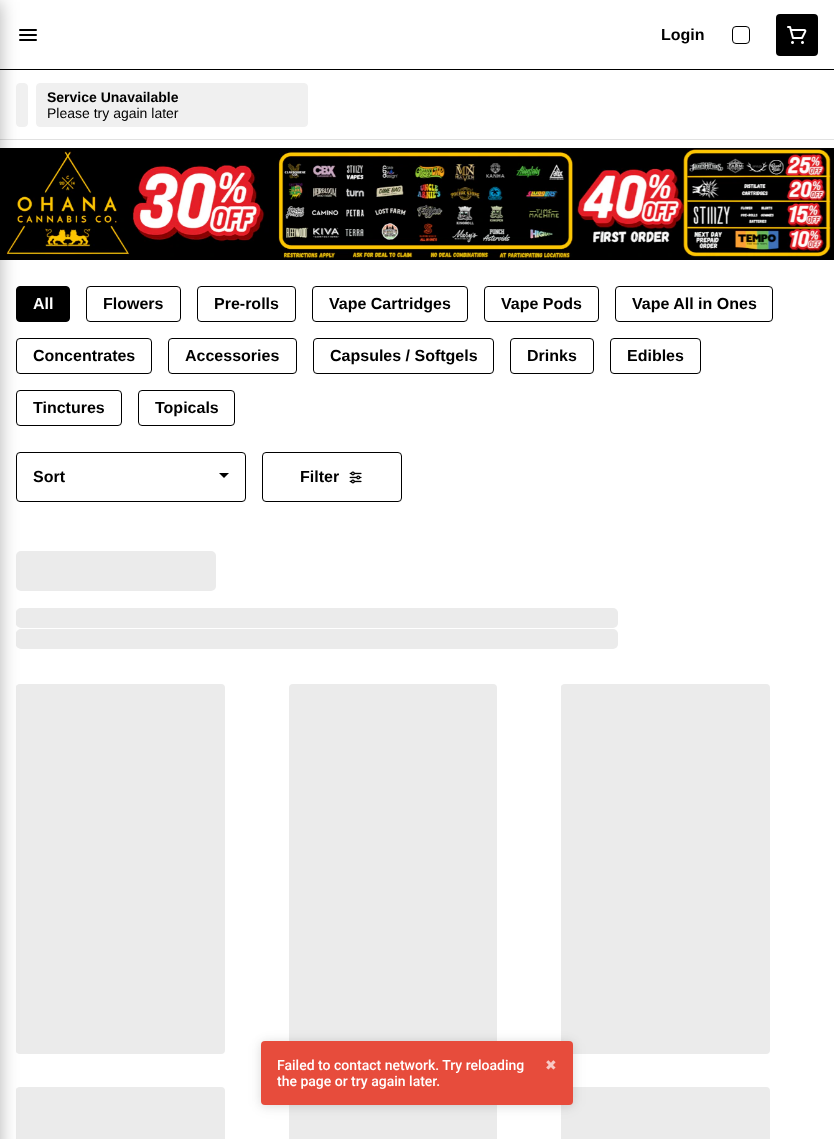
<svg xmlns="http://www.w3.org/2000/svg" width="834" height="1139">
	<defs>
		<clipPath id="clip1"><rect x="16" y="608" width="602" height="20" rx="5" /></clipPath>
		<linearGradient id="g1" gradientUnits="userSpaceOnUse" x1="-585" y1="618" x2="17" y2="618"><stop offset="0" stop-color="#EBEBEB" /><stop offset="0.5" stop-color="#F5F5F5" /><stop offset="1" stop-color="#EBEBEB" /></linearGradient>
		<clipPath id="clip2"><rect x="16" y="629" width="602" height="20" rx="5" /></clipPath>
		<linearGradient id="g2" gradientUnits="userSpaceOnUse" x1="-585" y1="639" x2="17" y2="639"><stop offset="0" stop-color="#EBEBEB" /><stop offset="0.5" stop-color="#F5F5F5" /><stop offset="1" stop-color="#EBEBEB" /></linearGradient>
		<clipPath id="clip3"><rect x="16" y="684" width="209" height="370" rx="4" /></clipPath>
		<linearGradient id="g3" gradientUnits="userSpaceOnUse" x1="-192" y1="869" x2="17" y2="869"><stop offset="0" stop-color="#EBEBEB" /><stop offset="0.5" stop-color="#F5F5F5" /><stop offset="1" stop-color="#EBEBEB" /></linearGradient>
		<clipPath id="clip4"><rect x="16" y="1087" width="209" height="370" rx="4" /></clipPath>
		<linearGradient id="g4" gradientUnits="userSpaceOnUse" x1="-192" y1="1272" x2="17" y2="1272"><stop offset="0" stop-color="#EBEBEB" /><stop offset="0.5" stop-color="#F5F5F5" /><stop offset="1" stop-color="#EBEBEB" /></linearGradient>
		<clipPath id="clip5"><rect x="561" y="684" width="209" height="370" rx="4" /></clipPath>
		<linearGradient id="g5" gradientUnits="userSpaceOnUse" x1="353" y1="869" x2="562" y2="869"><stop offset="0" stop-color="#EBEBEB" /><stop offset="0.5" stop-color="#F5F5F5" /><stop offset="1" stop-color="#EBEBEB" /></linearGradient>
	</defs>
	<rect width="100%" height="100%" fill="#FFFFFF" />
	<rect x="0" y="69" width="834" height="1" fill="#000000" />
	<rect x="19" y="34" width="18" height="2" rx="1" fill="#000000" />
	<rect x="19" y="39" width="18" height="2" rx="1" fill="#000000" />
	<rect x="19" y="29" width="18" height="2" rx="1" fill="#000000" />
	<rect x="0" y="139" width="834" height="1" fill="#E1E1E1" />
	<rect x="16.5" y="83.5" width="11" height="43" rx="3.5" fill="#F0F0F0" stroke="#F0F0F0" />
	<rect x="0" y="148" width="834" height="112" fill="#000000" />
	<image x="6" y="148" width="825" height="110" href="assets/img2.png" />
	<rect x="16.5" y="286.5" width="53" height="35" rx="3.5" fill="#000000" stroke="#000000" />
	<rect x="16.5" y="338.5" width="135" height="35" rx="3.5" fill="none" stroke="#000000" />
	<rect x="16.5" y="390.5" width="105" height="35" rx="3.5" fill="none" stroke="#000000" />
	<rect x="16.5" y="452.5" width="229" height="49" rx="3.5" fill="none" stroke="#000000" />
	<rect x="16" y="551" width="200" height="40" rx="5" fill="#EBEBEB" />
	<rect x="16" y="608" width="602" height="20" rx="5" fill="#EBEBEB" />
	<g clip-path="url(#clip1)">
		<rect x="16" y="608" width="1" height="20" fill="url(#g1)" />
	</g>
	<rect x="16" y="629" width="602" height="20" rx="5" fill="#EBEBEB" />
	<g clip-path="url(#clip2)">
		<rect x="16" y="629" width="1" height="20" fill="url(#g2)" />
	</g>
	<rect x="16" y="684" width="209" height="370" rx="4" fill="#EBEBEB" />
	<g clip-path="url(#clip3)">
		<rect x="16" y="684" width="1" height="370" fill="url(#g3)" />
	</g>
	<rect x="16" y="1087" width="209" height="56" rx="4" fill="#EBEBEB" />
	<g clip-path="url(#clip4)">
		<rect x="16" y="1087" width="1" height="52" fill="url(#g4)" />
	</g>
	<rect x="-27" y="2" width="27" height="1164" fill="#000000" fill-opacity="0.3" filter="blur(9px)" />
	<text x="661" y="40" font-family="Liberation Sans" font-size="16" font-weight="700" fill="#000000">Login</text>
	<rect x="732.5" y="26.5" width="17" height="17" rx="3.5" fill="none" stroke="#000000" />
	<rect x="776" y="14" width="42" height="42" rx="4" fill="#000000" />
	<image x="787" y="26" width="20" height="18" href="assets/img1.png" />
	<rect x="36.5" y="83.5" width="271" height="43" rx="3.5" fill="#F0F0F0" stroke="#F0F0F0" />
	<text x="47" y="102" font-family="Liberation Sans" font-size="14" font-weight="700" fill="#000000">Service Unavailable</text>
	<text x="47" y="118" font-family="Liberation Sans" font-size="14" fill="#000000">Please try again later</text>
	<text x="33" y="309" font-family="Liberation Sans" font-size="16" font-weight="700" fill="#FFFFFF">All</text>
	<rect x="86.5" y="286.5" width="94" height="35" rx="3.5" fill="none" stroke="#000000" />
	<text x="103" y="309" font-family="Liberation Sans" font-size="16" font-weight="700" fill="#000000">Flowers</text>
	<rect x="197.5" y="286.5" width="98" height="35" rx="3.5" fill="none" stroke="#000000" />
	<text x="214" y="309" font-family="Liberation Sans" font-size="16" font-weight="700" fill="#000000">Pre-rolls</text>
	<rect x="312.5" y="286.5" width="155" height="35" rx="3.5" fill="none" stroke="#000000" />
	<text x="329" y="309" font-family="Liberation Sans" font-size="16" font-weight="700" fill="#000000">Vape Cartridges</text>
	<rect x="484.5" y="286.5" width="114" height="35" rx="3.5" fill="none" stroke="#000000" />
	<text x="501" y="309" font-family="Liberation Sans" font-size="16" font-weight="700" fill="#000000">Vape Pods</text>
	<rect x="615.5" y="286.5" width="157" height="35" rx="3.5" fill="none" stroke="#000000" />
	<g font-family="Liberation Sans" font-size="16" font-weight="700" fill="#000000">
		<text x="632" y="309">Vape All in Ones</text>
		<text x="33" y="361">Concentrates</text>
	</g>
	<rect x="168.5" y="338.5" width="128" height="35" rx="3.5" fill="none" stroke="#000000" />
	<text x="185" y="361" font-family="Liberation Sans" font-size="16" font-weight="700" fill="#000000">Accessories</text>
	<rect x="313.5" y="338.5" width="180" height="35" rx="3.5" fill="none" stroke="#000000" />
	<text x="330" y="361" font-family="Liberation Sans" font-size="16" font-weight="700" fill="#000000">Capsules / Softgels</text>
	<rect x="510.5" y="338.5" width="83" height="35" rx="3.5" fill="none" stroke="#000000" />
	<text x="527" y="361" font-family="Liberation Sans" font-size="16" font-weight="700" fill="#000000">Drinks</text>
	<rect x="610.5" y="338.5" width="90" height="35" rx="3.5" fill="none" stroke="#000000" />
	<g font-family="Liberation Sans" font-size="16" font-weight="700" fill="#000000">
		<text x="627" y="361">Edibles</text>
		<text x="33" y="413">Tinctures</text>
	</g>
	<rect x="138.5" y="390.5" width="96" height="35" rx="3.5" fill="none" stroke="#000000" />
	<g font-family="Liberation Sans" font-size="16" font-weight="700" fill="#000000">
		<text x="155" y="413">Topicals</text>
		<text x="33" y="482">Sort</text>
	</g>
	<path d="M219 473H229L224 478Z" fill="#000000" />
	<rect x="262.5" y="452.5" width="139" height="49" rx="3.5" fill="none" stroke="#000000" />
	<text x="300" y="482" font-family="Liberation Sans" font-size="16" font-weight="700" fill="#000000">Filter</text>
	<image x="349" y="471" width="13" height="13" href="assets/img3.png" />
	<rect x="289" y="684" width="208" height="370" rx="4" fill="#EBEBEB" />
	<rect x="561" y="684" width="209" height="370" rx="4" fill="#EBEBEB" />
	<g clip-path="url(#clip5)">
		<rect x="561" y="684" width="1" height="357" fill="url(#g5)" />
	</g>
	<rect x="289" y="1105" width="208" height="34" fill="#EBEBEB" />
	<rect x="561" y="1087" width="209" height="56" rx="4" fill="#EBEBEB" />
	<rect x="261" y="1043" width="312" height="64" rx="4" fill="#000000" fill-opacity="0.05" filter="blur(7.5px)" />
	<rect x="261" y="1042" width="312" height="64" rx="4" fill="#000000" fill-opacity="0.1" filter="blur(5px)" />
	<rect x="261" y="1041" width="312" height="64" rx="4" fill="#E74C3C" />
	<g font-family="Roboto" font-size="14" font-weight="500" fill="#FFFFFF">
		<text x="277" y="1070">Failed to contact network. Try reloading</text>
		<text x="277" y="1086">the page or try again later.</text>
	</g>
	<text x="545" y="1070" font-family="DejaVu Sans" font-size="14" fill="#F8C9C5">✖︎</text>
</svg>
